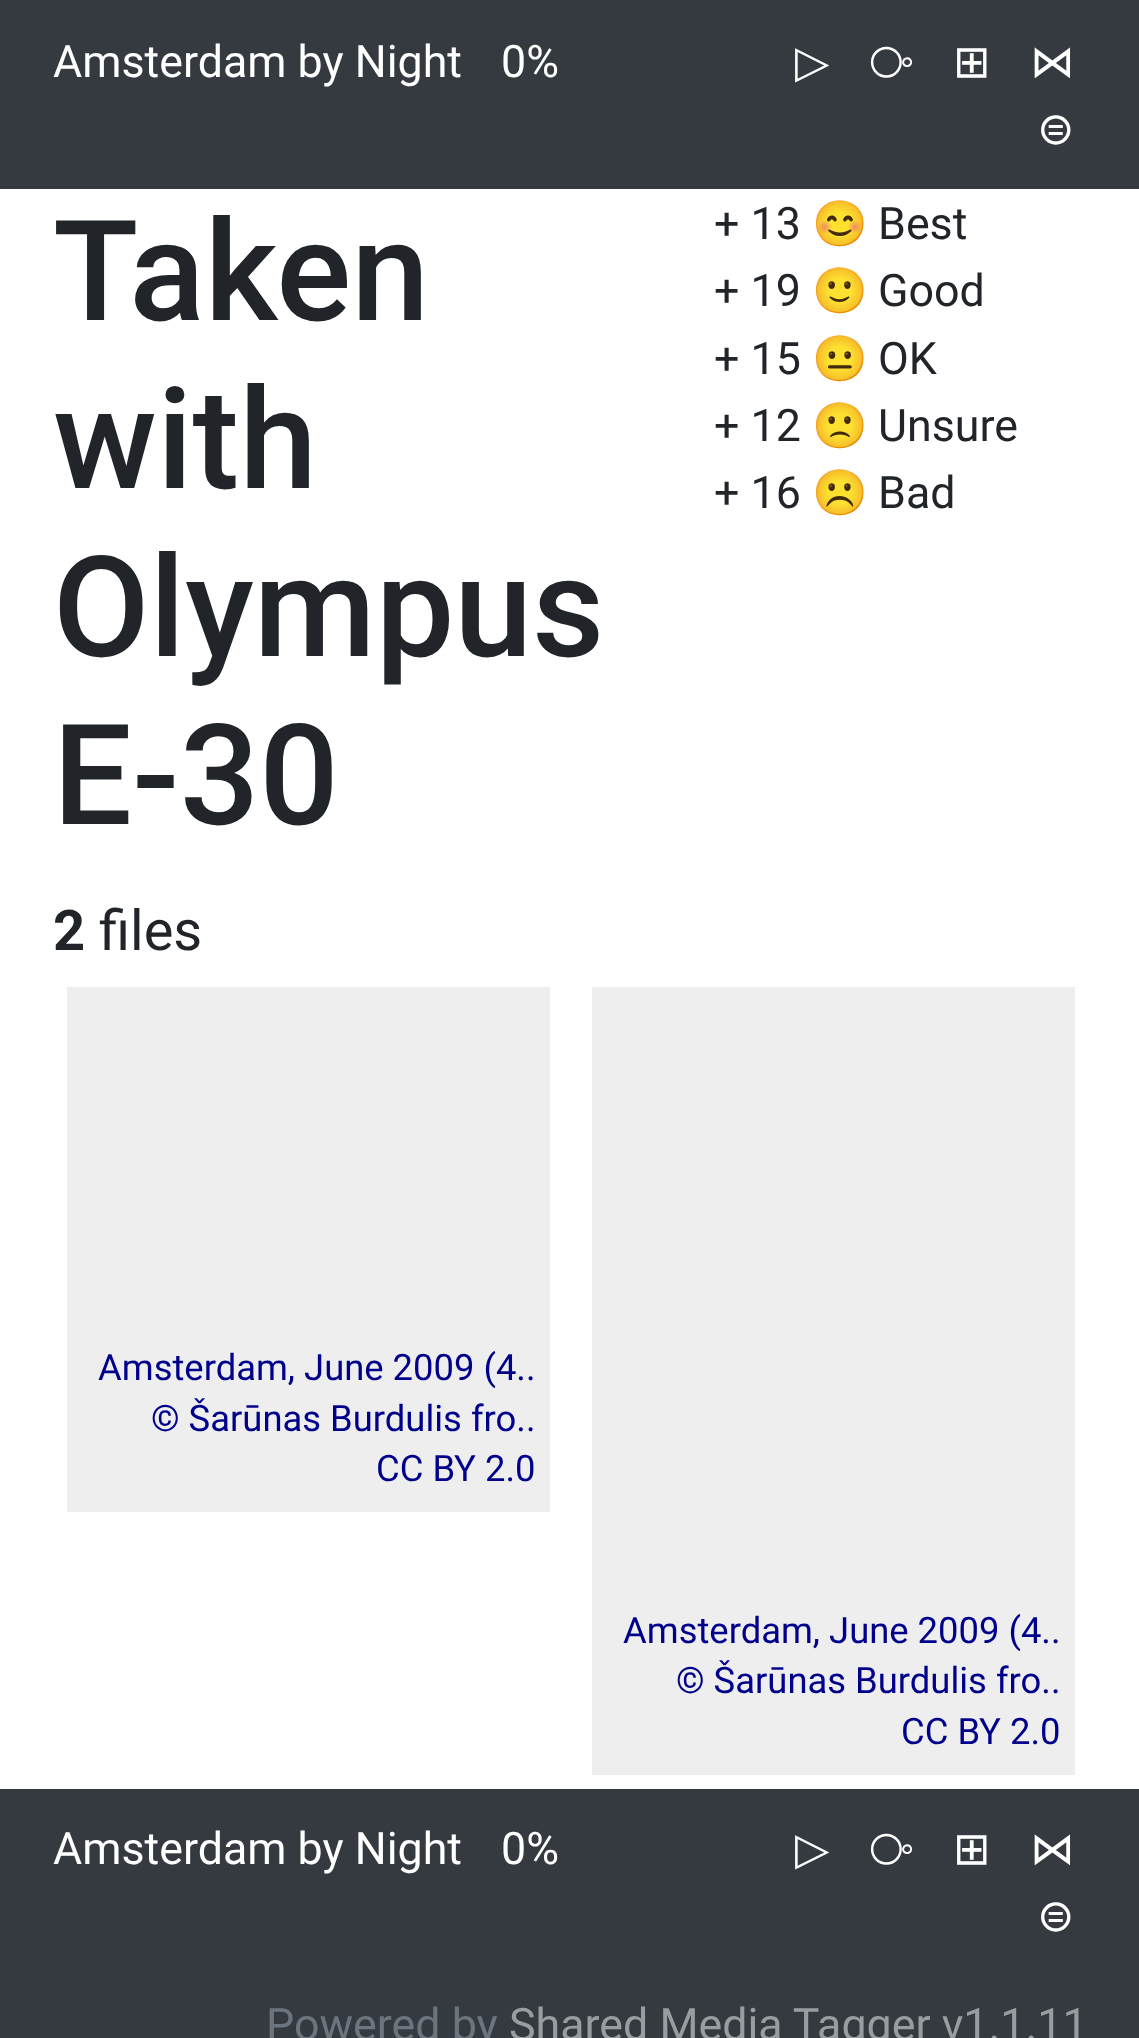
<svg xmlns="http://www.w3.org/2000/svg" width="1139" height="2038">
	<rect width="100%" height="100%" fill="#343A40" />
	<g font-family="Roboto" font-size="44.75" fill="#FFFFFF">
		<text x="53" y="77">Amsterdam by Night</text>
		<text x="501" y="77">0%</text>
	</g>
	<text x="795" y="77" font-family="DejaVu Sans" font-size="44.75" fill="#FFFFFF">▷</text>
	<text x="869" y="77" font-family="FreeSans" font-size="44.75" fill="#FFFFFF">⧂</text>
	<g font-family="DejaVu Sans" font-size="44.75" fill="#FFFFFF">
		<text x="953" y="77">⊞</text>
		<text x="1030" y="77">⋈</text>
		<text x="1037" y="144">⊜</text>
	</g>
	<rect x="0" y="189" width="1139" height="1600" fill="#FFFFFF" />
	<g font-family="Roboto" font-size="140" font-weight="500" fill="#212529">
		<text x="53" y="320">Taken</text>
		<text x="53" y="488">with</text>
		<text x="53" y="656">Olympus</text>
		<text x="53" y="824">E-30</text>
	</g>
	<text x="714" y="239" font-family="Roboto" font-size="44.75" fill="#212529">+ 13</text>
	<text x="812" y="239" font-family="Noto Color Emoji" font-size="44.75" fill="#212529">😊</text>
	<g font-family="Roboto" font-size="44.75" fill="#212529">
		<text x="878" y="239">Best</text>
		<text x="714" y="306">+ 19</text>
	</g>
	<text x="812" y="306" font-family="Noto Color Emoji" font-size="44.75" fill="#212529">🙂</text>
	<g font-family="Roboto" font-size="44.75" fill="#212529">
		<text x="878" y="306">Good</text>
		<text x="714" y="374">+ 15</text>
	</g>
	<text x="812" y="374" font-family="Noto Color Emoji" font-size="44.75" fill="#212529">😐</text>
	<g font-family="Roboto" font-size="44.75" fill="#212529">
		<text x="878" y="374">OK</text>
		<text x="714" y="441">+ 12</text>
	</g>
	<text x="812" y="441" font-family="Noto Color Emoji" font-size="44.75" fill="#212529">🙁</text>
	<g font-family="Roboto" font-size="44.75" fill="#212529">
		<text x="878" y="441">Unsure</text>
		<text x="714" y="508">+ 16</text>
	</g>
	<text x="812" y="508" font-family="Noto Color Emoji" font-size="44.75" fill="#212529">☹️</text>
	<text x="878" y="508" font-family="Roboto" font-size="44.75" fill="#212529">Bad</text>
	<text x="53" y="950" font-family="Roboto" font-size="56" font-weight="700" fill="#212529">2</text>
	<text x="99" y="950" font-family="Roboto" font-size="56" fill="#212529">files</text>
	<rect x="67" y="987" width="483" height="525" fill="#EEEEEE" />
	<g font-family="Roboto" font-size="36.4" fill="#00008B">
		<text x="98" y="1380">Amsterdam, June 2009 (4..</text>
		<text x="151" y="1431">© Šarūnas Burdulis fro..</text>
		<text x="376" y="1481">CC BY 2.0</text>
	</g>
	<rect x="592" y="987" width="483" height="788" fill="#EEEEEE" />
	<g font-family="Roboto" font-size="36.4" fill="#00008B">
		<text x="623" y="1643">Amsterdam, June 2009 (4..</text>
		<text x="676" y="1693">© Šarūnas Burdulis fro..</text>
		<text x="901" y="1744">CC BY 2.0</text>
	</g>
	<g font-family="Roboto" font-size="44.75" fill="#FFFFFF">
		<text x="53" y="1864">Amsterdam by Night</text>
		<text x="501" y="1864">0%</text>
	</g>
	<text x="795" y="1864" font-family="DejaVu Sans" font-size="44.75" fill="#FFFFFF">▷</text>
	<text x="869" y="1864" font-family="FreeSans" font-size="44.75" fill="#FFFFFF">⧂</text>
	<g font-family="DejaVu Sans" font-size="44.75" fill="#FFFFFF">
		<text x="953" y="1864">⊞</text>
		<text x="1030" y="1864">⋈</text>
		<text x="1037" y="1931">⊜</text>
	</g>
	<text x="266" y="2040" font-family="Roboto" font-size="44.75" fill="#6C757D">Powered by</text>
	<text x="509" y="2040" font-family="Roboto" font-size="44.75" fill="#9A9DA0">Shared Media Tagger v1.1.11</text>
</svg>
